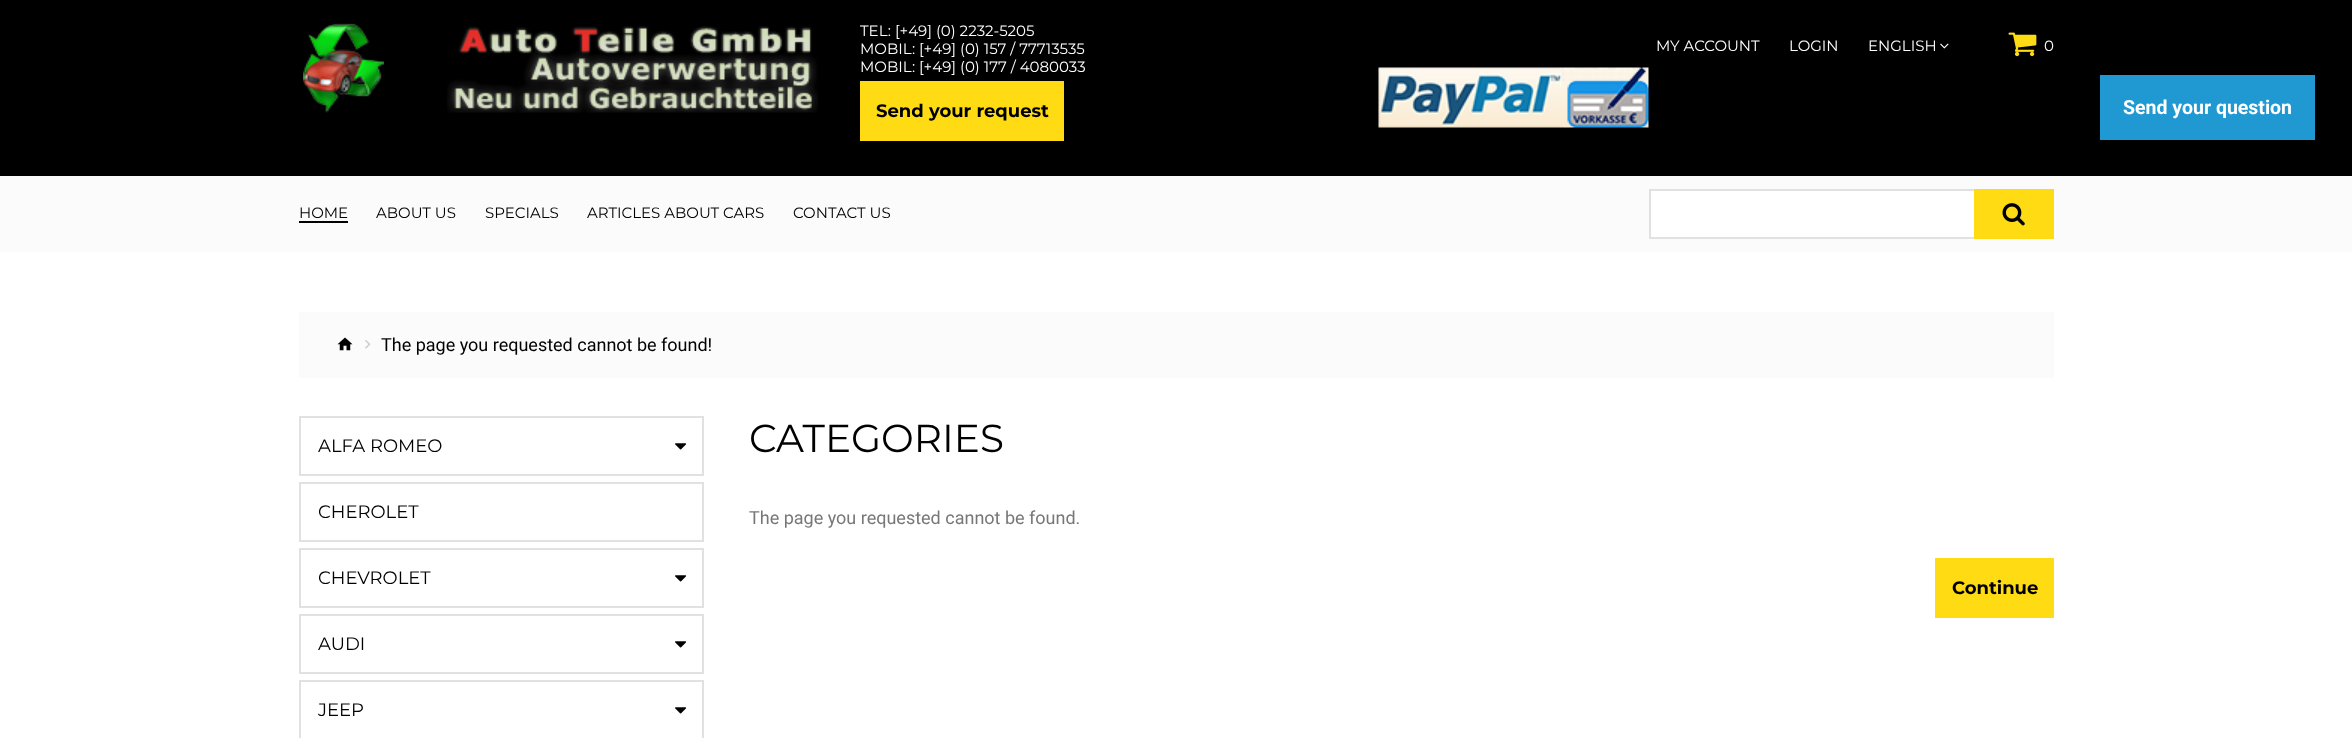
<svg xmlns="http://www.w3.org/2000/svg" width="2352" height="738">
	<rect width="100%" height="100%" fill="#FFFFFF" />
	<rect x="0" y="0" width="2352" height="176" fill="#000000" />
	<image x="303" y="23" width="81" height="90" href="assets/img1.png" />
	<image x="447" y="26" width="371" height="87" href="assets/img2.png" />
	<g font-family="Montserrat" font-size="15" fill="#FFFFFF">
		<text x="860" y="36">TEL: [+49] (0) 2232-5205</text>
		<text x="860" y="54">MOBIL: [+49] (0) 157 / 77713535</text>
		<text x="860" y="72">MOBIL: [+49] (0) 177 / 4080033</text>
	</g>
	<rect x="860" y="81" width="204" height="60" fill="#FFDB14" />
	<text x="876" y="117" font-family="Montserrat" font-size="18" font-weight="700" fill="#000000">Send your request</text>
	<g font-family="Montserrat" font-size="15" fill="#FFFFFF">
		<text x="1656" y="51">MY ACCOUNT</text>
		<text x="1789" y="51">LOGIN</text>
		<text x="1868" y="51">ENGLISH</text>
	</g>
	<image x="1940" y="43" width="9" height="6" href="assets/img3.png" />
	<image x="2008" y="32" width="29" height="25" href="assets/img4.png" />
	<text x="2044" y="51" font-family="Montserrat" font-size="15" fill="#FFFFFF">0</text>
	<image x="1378" y="67" width="271" height="61" href="assets/img5.png" />
	<rect x="0" y="176" width="2352" height="76" fill="#FBFBFB" />
	<text x="299" y="218" font-family="Montserrat" font-size="15" fill="#000000">HOME</text>
	<rect x="299" y="221" width="49" height="2" fill="#000000" />
	<g font-family="Montserrat" font-size="15" fill="#000000">
		<text x="376" y="218">ABOUT US</text>
		<text x="485" y="218">SPECIALS</text>
		<text x="587" y="218">ARTICLES ABOUT CARS</text>
		<text x="793" y="218">CONTACT US</text>
	</g>
	<rect x="1651" y="191" width="323" height="46" fill="#FFFFFF" />
	<rect x="1649" y="189" width="325" height="2" fill="#E1E1E1" />
	<rect x="1649" y="237" width="325" height="2" fill="#E1E1E1" />
	<rect x="1649" y="189" width="2" height="50" fill="#E1E1E1" />
	<rect x="1974" y="189" width="80" height="50" fill="#FFDB14" />
	<image x="2002" y="203" width="23" height="23" href="assets/img6.png" />
	<rect x="299" y="312" width="1755" height="66" fill="#FBFBFB" />
	<image x="337" y="337" width="16" height="14" href="assets/img7.png" />
	<image x="365" y="340" width="6" height="9" href="assets/img8.png" />
	<text x="381" y="351" font-family="Roboto" font-size="18" fill="#000000">The page you requested cannot be found!</text>
	<rect x="300" y="417" width="403" height="58" fill="none" stroke="#E1E1E1" stroke-width="2" />
	<text x="318" y="452" font-family="Montserrat" font-size="18" fill="#000000">ALFA ROMEO</text>
	<image x="675" y="443" width="12" height="7" href="assets/img9.png" />
	<rect x="300" y="483" width="403" height="58" fill="none" stroke="#E1E1E1" stroke-width="2" />
	<text x="318" y="518" font-family="Montserrat" font-size="18" fill="#000000">CHEROLET</text>
	<rect x="300" y="549" width="403" height="58" fill="none" stroke="#E1E1E1" stroke-width="2" />
	<text x="318" y="584" font-family="Montserrat" font-size="18" fill="#000000">CHEVROLET</text>
	<image x="675" y="575" width="12" height="7" href="assets/img9.png" />
	<rect x="300" y="615" width="403" height="58" fill="none" stroke="#E1E1E1" stroke-width="2" />
	<text x="318" y="650" font-family="Montserrat" font-size="18" fill="#000000">AUDI</text>
	<image x="675" y="641" width="12" height="7" href="assets/img9.png" />
	<rect x="300" y="681" width="403" height="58" fill="none" stroke="#E1E1E1" stroke-width="2" />
	<text x="318" y="716" font-family="Montserrat" font-size="18" fill="#000000">JEEP</text>
	<image x="675" y="707" width="12" height="7" href="assets/img9.png" />
	<text x="749" y="452" font-family="Montserrat" font-size="39" fill="#000000">CATEGORIES</text>
	<text x="749" y="524" font-family="Roboto" font-size="18" fill="#777777">The page you requested cannot be found.</text>
	<rect x="1935" y="558" width="119" height="60" fill="#FFDB14" />
	<text x="1952" y="594" font-family="Montserrat" font-size="18" font-weight="700" fill="#000000">Continue</text>
	<rect x="2100" y="75" width="215" height="65" fill="#2098D1" />
	<text x="2123" y="114" font-family="Roboto" font-size="19.5" font-weight="700" fill="#FFFFFF">Send your question</text>
</svg>
